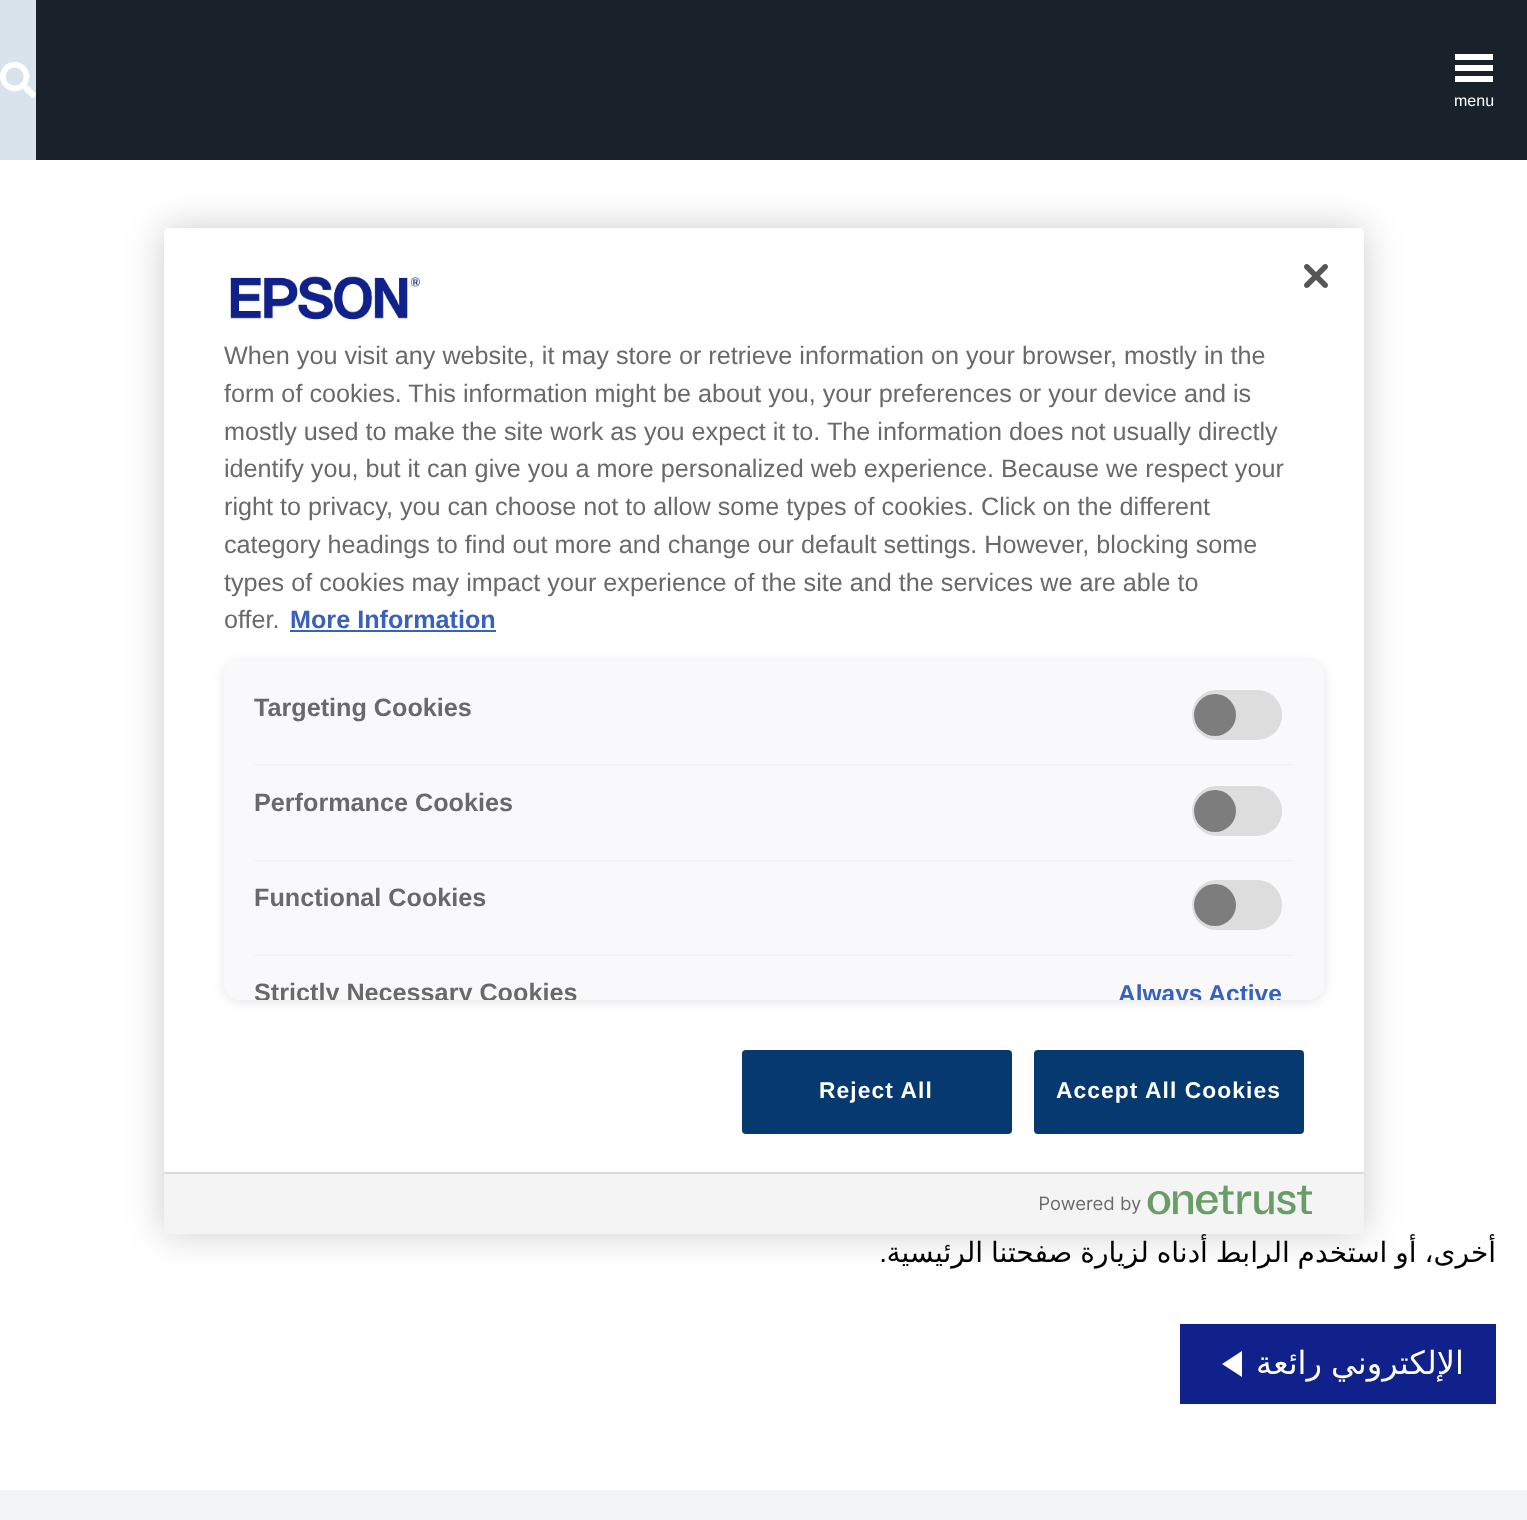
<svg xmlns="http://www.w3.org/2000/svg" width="1527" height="1520">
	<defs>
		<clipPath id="clip1"><rect x="224" y="660" width="1100" height="340" rx="16" /></clipPath>
	</defs>
	<rect width="100%" height="100%" fill="#FFFFFF" />
	<rect x="36" y="0" width="1491" height="160" fill="#19212B" />
	<rect x="0" y="0" width="36" height="160" fill="#D9E3EC" />
	<image x="0" y="62" width="36" height="36" href="assets/img1.png" />
	<path d="M1455 54V60H1493V54ZM1455 65V71H1493V65ZM1455 76V82H1493V76Z" fill="#FFFFFF" />
	<text x="1454" y="106" font-family="Liberation Sans" font-size="16" fill="#FFFFFF">menu</text>
	<text x="887" y="1262" font-family="Liberation Sans" font-size="28" direction="rtl" fill="#000000">.</text>
	<text x="1496" y="1262" word-spacing="-1" font-family="DejaVu Sans" font-size="28" direction="rtl" fill="#000000">أخرى، أو استخدم الرابط أدناه لزيارة صفحتنا الرئيسية</text>
	<rect x="1180" y="1324" width="316" height="80" fill="#10218B" />
	<path d="M1242 1351V1377L1222 1364Z" fill="#FFFFFF" />
	<text x="1464" y="1374" word-spacing="-1" font-family="DejaVu Sans" font-size="32" direction="rtl" fill="#FFFFFF">الإلكتروني رائعة</text>
	<rect x="0" y="1490" width="1527" height="30" fill="#F1F3F5" />
	<rect x="164" y="228" width="1200" height="1006" rx="5" fill="#000000" fill-opacity="0.2" filter="blur(18px)" />
	<rect x="164" y="228" width="1200" height="1006" rx="5" fill="#FFFFFF" />
	<image x="1304" y="264" width="24" height="24" href="assets/img2.png" />
	<image x="230" y="276" width="190" height="44" href="assets/img3.png" />
	<g font-family="Liberation Sans" font-size="25.2" fill="#696969">
		<text x="224" y="364">When you visit any website, it may store or retrieve information on your browser, mostly in the</text>
		<text x="224" y="402">form of cookies. This information might be about you, your preferences or your device and is</text>
		<text x="224" y="440">mostly used to make the site work as you expect it to. The information does not usually directly</text>
		<text x="224" y="477">identify you, but it can give you a more personalized web experience. Because we respect your</text>
		<text x="224" y="515">right to privacy, you can choose not to allow some types of cookies. Click on the different</text>
		<text x="224" y="553">category headings to find out more and change our default settings. However, blocking some</text>
		<text x="224" y="591">types of cookies may impact your experience of the site and the services we are able to</text>
		<text x="224" y="628">offer.</text>
	</g>
	<text x="290" y="628" font-family="Liberation Sans" font-size="25.2" font-weight="700" fill="#3860BE">More Information</text>
	<rect x="290" y="630" width="206" height="2" fill="#3860BE" />
	<rect x="224" y="662" width="1100" height="340" rx="16" fill="#000000" fill-opacity="0.1" filter="blur(6px)" />
	<rect x="224" y="660" width="1100" height="340" rx="16" fill="#F9F9FC" />
	<rect x="254" y="764" width="1040" height="2" fill="#F4F4F4" />
	<text x="254" y="716" font-family="Liberation Sans" font-size="25.2" font-weight="700" fill="#696969">Targeting Cookies</text>
	<path d="M1217 690H1257C1271 690 1282 701 1282 715C1282 729 1271 740 1257 740H1217C1203 740 1192 729 1192 715C1192 701 1203 690 1217 690Z" fill="#DDDDDD" />
	<circle cx="1215" cy="715" r="21" fill="#7D7D7D" />
	<rect x="254" y="860" width="1040" height="2" fill="#F4F4F4" />
	<text x="254" y="811" font-family="Liberation Sans" font-size="25.2" font-weight="700" fill="#696969">Performance Cookies</text>
	<path d="M1217 786H1257C1271 786 1282 797 1282 811C1282 825 1271 836 1257 836H1217C1203 836 1192 825 1192 811C1192 797 1203 786 1217 786Z" fill="#DDDDDD" />
	<circle cx="1215" cy="811" r="21" fill="#7D7D7D" />
	<rect x="254" y="954" width="1040" height="2" fill="#F4F4F4" />
	<text x="254" y="906" font-family="Liberation Sans" font-size="25.2" font-weight="700" fill="#696969">Functional Cookies</text>
	<path d="M1217 880H1257C1271 880 1282 891 1282 905C1282 919 1271 930 1257 930H1217C1203 930 1192 919 1192 905C1192 891 1203 880 1217 880Z" fill="#DDDDDD" />
	<circle cx="1215" cy="905" r="21" fill="#7D7D7D" />
	<g clip-path="url(#clip1)">
		<text x="254" y="1001" font-family="Liberation Sans" font-size="25.2" font-weight="700" fill="#696969">Strictly Necessary Cookies</text>
		<text x="1118" y="1002" font-family="Liberation Sans" font-size="24.5" font-weight="700" fill="#3860BE">Always Active</text>
	</g>
	<rect x="743" y="1051" width="268" height="82" rx="3" fill="#063970" stroke="#063970" stroke-width="2" />
	<text x="819" y="1098" font-family="Liberation Sans" font-size="22.75" font-weight="700" letter-spacing="1.1" fill="#FFFFFF">Reject All</text>
	<rect x="1035" y="1051" width="268" height="82" rx="3" fill="#063970" stroke="#063970" stroke-width="2" />
	<text x="1056" y="1098" font-family="Liberation Sans" font-size="22.75" font-weight="700" letter-spacing="1.1" fill="#FFFFFF">Accept All Cookies</text>
	<path d="M164 1172H1364V1229C1364 1232 1362 1234 1359 1234H169C166 1234 164 1232 164 1229Z" fill="#F4F4F4" />
	<rect x="164" y="1172" width="1200" height="2" fill="#D8D8D8" />
	<image x="1040" y="1185" width="272" height="30" href="assets/img4.png" />
</svg>
